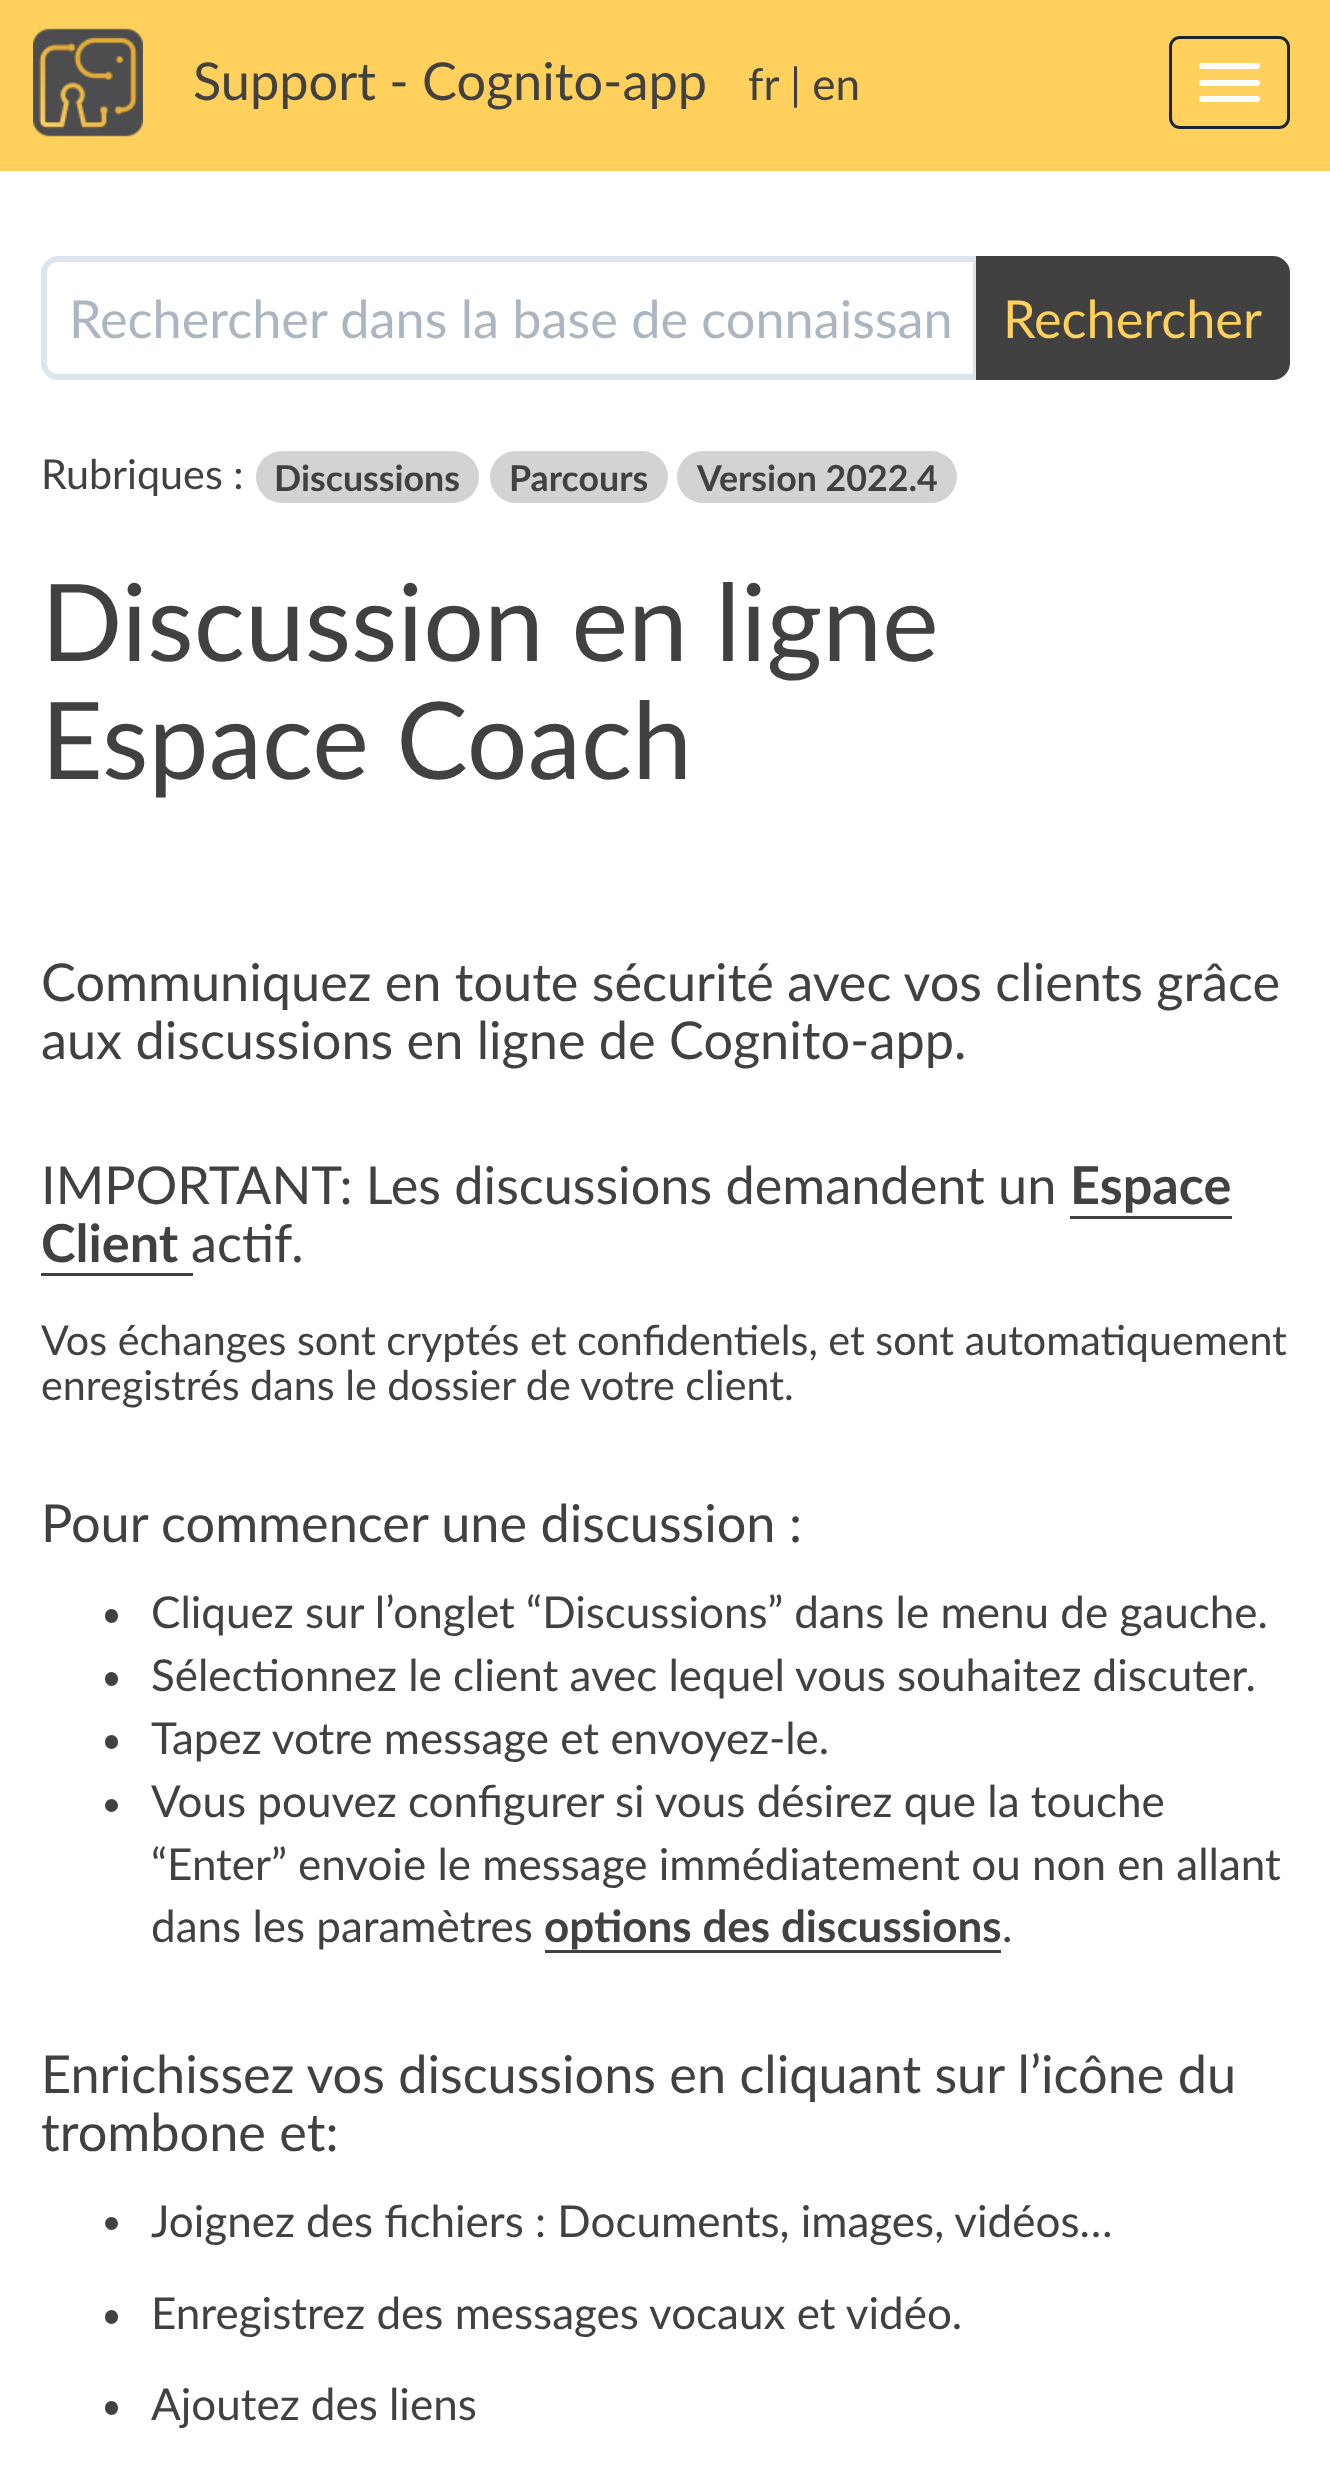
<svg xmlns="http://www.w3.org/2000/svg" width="1330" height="2478">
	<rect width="100%" height="100%" fill="#FFFFFF" />
	<rect x="0" y="0" width="1330" height="171" fill="#FFD05B" />
	<image x="33" y="28" width="110" height="109" href="assets/img1.png" />
	<text x="193" y="100" font-family="Lato" font-size="52.25" fill="#414141">Support - Cognito-app</text>
	<g font-family="Lato" font-size="44" fill="#414141">
		<text x="748" y="100">fr</text>
		<text x="790" y="100">| en</text>
	</g>
	<rect x="1170.5" y="37.5" width="118" height="90" rx="9.5" fill="none" stroke="#1A242F" stroke-width="3" />
	<rect x="1199" y="63" width="61" height="6" rx="3" fill="#FFFFFF" />
	<rect x="1199" y="80" width="61" height="6" rx="3" fill="#FFFFFF" />
	<rect x="1199" y="96" width="61" height="6" rx="3" fill="#FFFFFF" />
	<path d="M58 259H976V377H58C50.5 377 44 370.5 44 363V273C44 265.5 50.5 259 58 259Z" fill="none" stroke="#DCE4EC" stroke-width="6" />
	<text x="69" y="338" font-family="Lato" font-size="52.25" fill="#ACB6C0">Rechercher dans la base de connaissan</text>
	<path d="M979 259H1273C1280.5 259 1287 265.5 1287 273V363C1287 370.5 1280.5 377 1273 377H979Z" fill="#414141" stroke="#414141" stroke-width="6" />
	<text x="1003" y="338" font-family="Lato" font-size="52.25" fill="#FFD05B">Rechercher</text>
	<text x="41" y="489" font-family="Lato" font-size="41.25" fill="#414141">Rubriques :</text>
	<rect x="256" y="451" width="223" height="52" rx="26" fill="#D3D3D3" />
	<text x="274" y="491" font-family="Lato" font-size="35.75" font-weight="700" fill="#414141">Discussions</text>
	<rect x="490" y="451" width="178" height="52" rx="26" fill="#D3D3D3" />
	<text x="509" y="491" font-family="Lato" font-size="35.75" font-weight="700" fill="#414141">Parcours</text>
	<rect x="677" y="451" width="280" height="52" rx="26" fill="#D3D3D3" />
	<text x="697" y="491" font-family="Lato" font-size="35.75" font-weight="700" fill="#414141">Version 2022.4</text>
	<g font-family="Lato" font-size="107.25" fill="#414141">
		<text x="41" y="661">Discussion en ligne</text>
		<text x="41" y="779">Espace Coach</text>
	</g>
	<g font-family="Lato" font-size="52.25" fill="#414141">
		<text x="41" y="1001">Communiquez en toute sécurité avec vos clients grâce</text>
		<text x="41" y="1059">aux discussions en ligne de Cognito-app.</text>
		<text x="41" y="1204">IMPORTANT: Les discussions demandent un</text>
	</g>
	<text x="1070" y="1204" font-family="Lato" font-size="52.25" font-weight="700" fill="#414141">Espace</text>
	<rect x="1070" y="1216" width="162" height="3" fill="#414141" />
	<text x="41" y="1262" font-family="Lato" font-size="52.25" font-weight="700" fill="#414141">Client</text>
	<rect x="41" y="1273" width="152" height="3" fill="#414141" />
	<text x="191" y="1262" font-family="Lato" font-size="52.25" fill="#414141">actif.</text>
	<g font-family="Lato" font-size="41.25" fill="#414141">
		<text x="41" y="1355">Vos échanges sont cryptés et confidentiels, et sont automatiquement</text>
		<text x="41" y="1400">enregistrés dans le dossier de votre client.</text>
	</g>
	<text x="41" y="1542" font-family="Lato" font-size="52.25" fill="#414141">Pour commencer une discussion :</text>
	<rect x="105" y="1609" width="13" height="14" rx="6.5" fill="#414141" />
	<text x="151" y="1628" font-family="Lato" font-size="44" fill="#414141">Cliquez sur l’onglet “Discussions” dans le menu de gauche.</text>
	<rect x="105" y="1672" width="13" height="14" rx="6.5" fill="#414141" />
	<text x="151" y="1691" font-family="Lato" font-size="44" fill="#414141">Sélectionnez le client avec lequel vous souhaitez discuter.</text>
	<rect x="105" y="1735" width="13" height="14" rx="6.5" fill="#414141" />
	<text x="151" y="1754" font-family="Lato" font-size="44" fill="#414141">Tapez votre message et envoyez-le.</text>
	<circle cx="111.5" cy="1805.5" r="6.5" fill="#414141" />
	<g font-family="Lato" font-size="44" fill="#414141">
		<text x="151" y="1817">Vous pouvez configurer si vous désirez que la touche</text>
		<text x="151" y="1880">“Enter” envoie le message immédiatement ou non en allant</text>
		<text x="151" y="1942">dans les paramètres</text>
	</g>
	<text x="544" y="1942" font-family="Lato" font-size="44" font-weight="700" fill="#414141">options des discussions</text>
	<rect x="545" y="1950" width="456" height="3" fill="#414141" />
	<text x="1002" y="1942" font-family="Lato" font-size="44" fill="#414141">.</text>
	<g font-family="Lato" font-size="52.25" fill="#414141">
		<text x="41" y="2093">Enrichissez vos discussions en cliquant sur l’icône du</text>
		<text x="41" y="2151">trombone et:</text>
	</g>
	<circle cx="111.5" cy="2223.5" r="6.5" fill="#414141" />
	<text x="151" y="2237" font-family="Lato" font-size="44" fill="#414141">Joignez des fichiers : Documents, images, vidéos…</text>
	<rect x="105" y="2310" width="13" height="14" rx="6.5" fill="#414141" />
	<text x="151" y="2329" font-family="Lato" font-size="44" fill="#414141">Enregistrez des messages vocaux et vidéo.</text>
	<rect x="105" y="2401" width="13" height="14" rx="6.5" fill="#414141" />
	<text x="151" y="2420" font-family="Lato" font-size="44" fill="#414141">Ajoutez des liens</text>
</svg>
